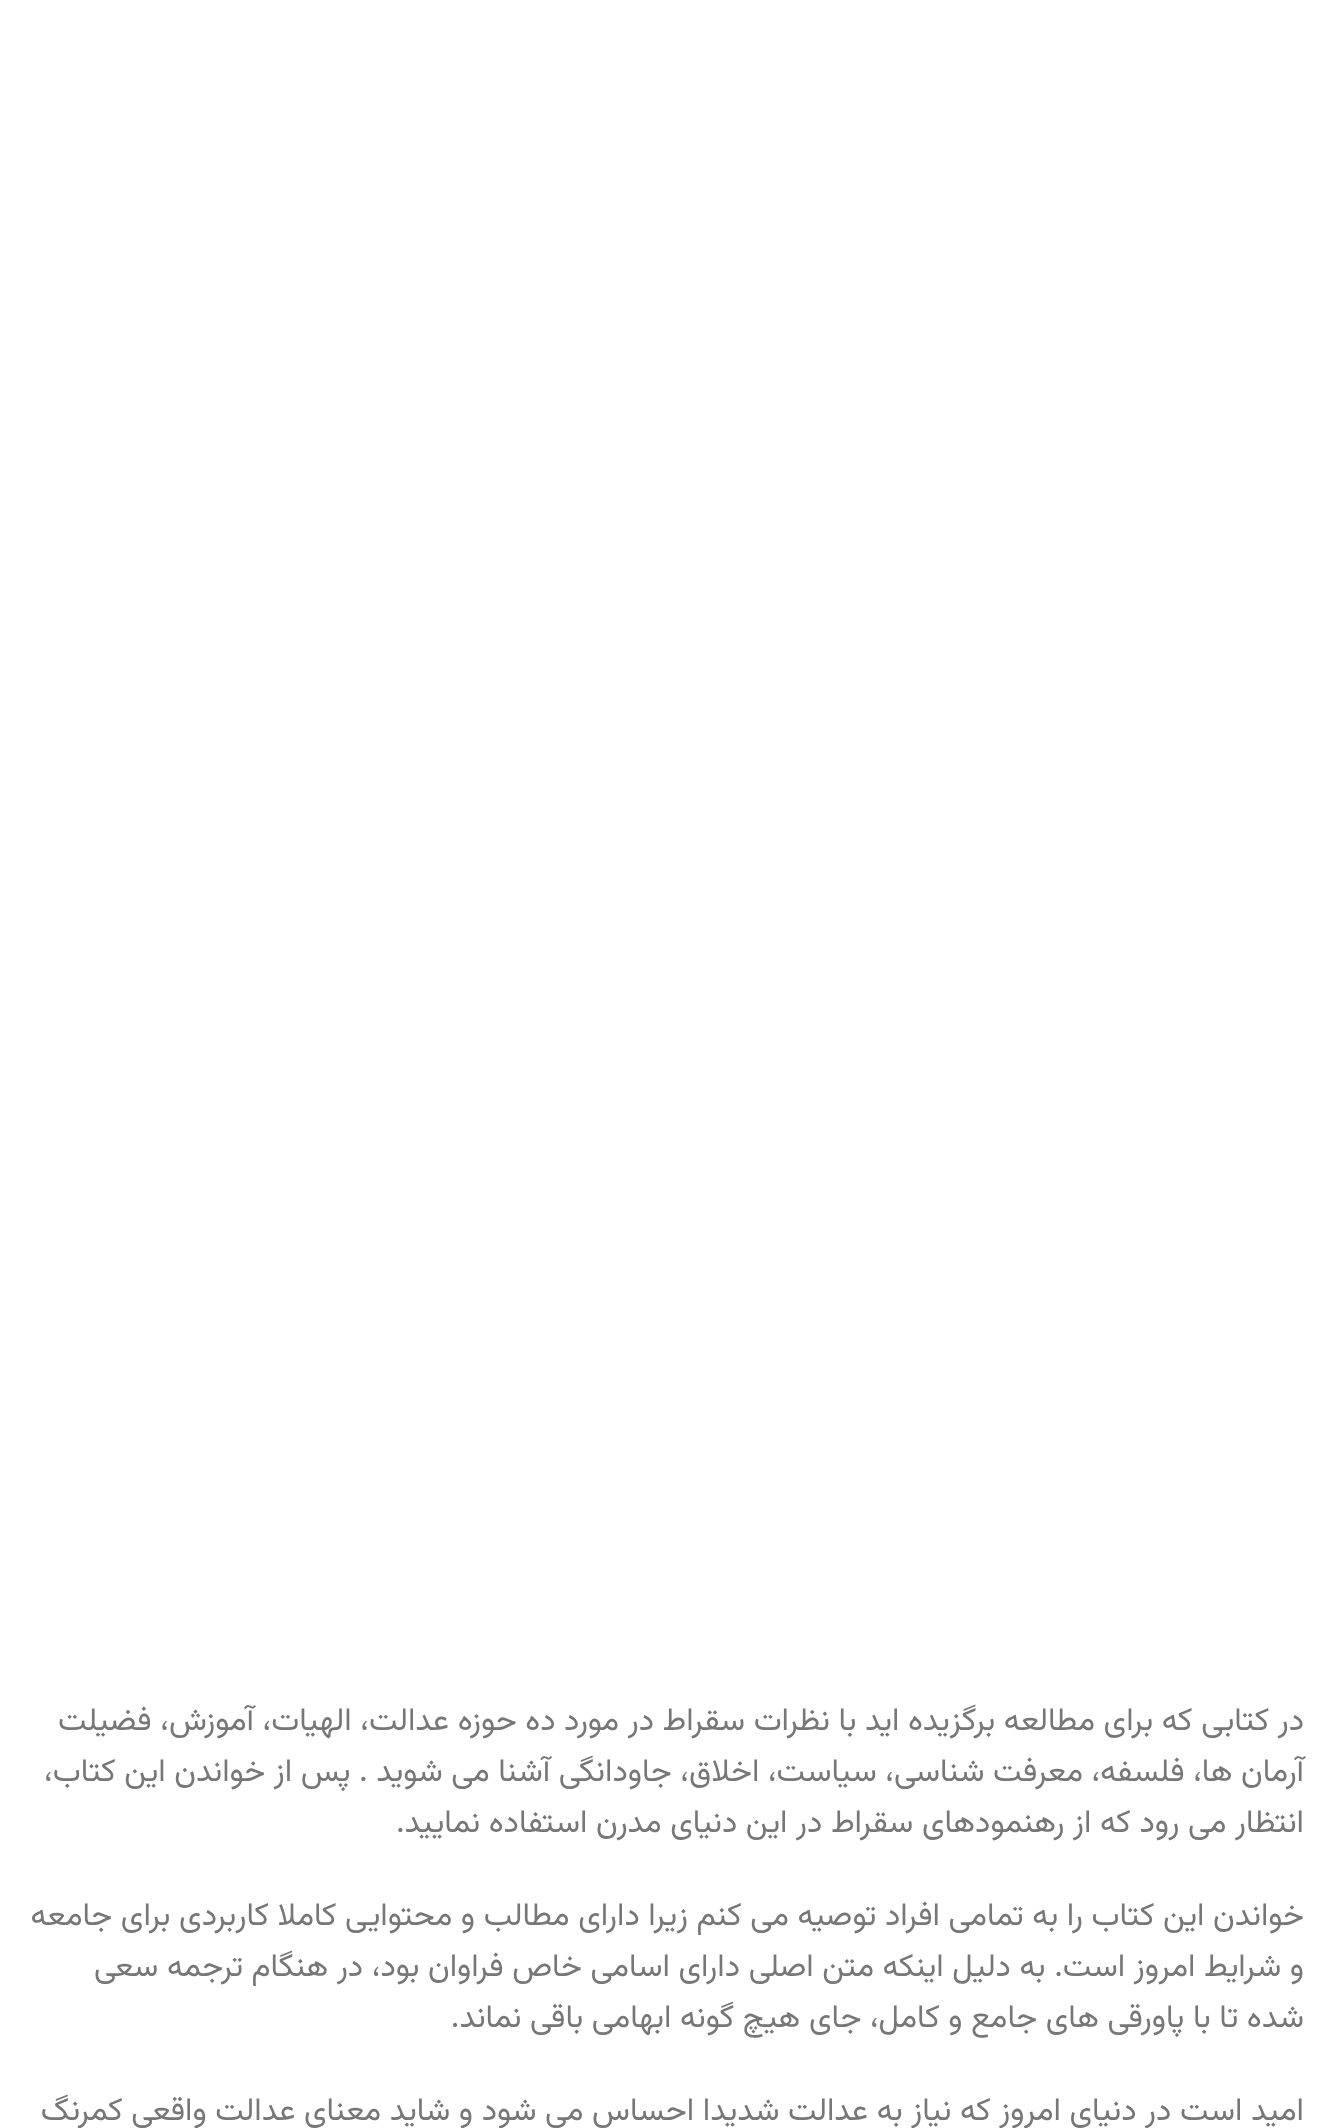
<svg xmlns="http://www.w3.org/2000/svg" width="1334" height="2128">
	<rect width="100%" height="100%" fill="#FFFFFF" />
	<g font-family="Vazirmatn" font-size="32" direction="rtl" fill="#777777">
		<text x="1304" y="1730">در کتابی که برای مطالعه برگزیده اید با نظرات سقراط در مورد ده حوزه عدالت، الهیات، آموزش، فضیلت</text>
		<text x="1304" y="1781">آرمان ها، فلسفه، معرفت شناسی، سیاست، اخلاق، جاودانگی آشنا می شوید . پس از خواندن این کتاب،</text>
		<text x="1304" y="1832">انتظار می رود که از رهنمودهای سقراط در این دنیای مدرن استفاده نمایید.</text>
		<text x="1304" y="1925">خواندن این کتاب را به تمامی افراد توصیه می کنم زیرا دارای مطالب و محتوایی کاملا کاربردی برای جامعه</text>
		<text x="1304" y="1976">و شرایط امروز است. به دلیل اینکه متن اصلی دارای اسامی خاص فراوان بود، در هنگام ترجمه سعی</text>
		<text x="1304" y="2027">شده تا با پاورقی های جامع و کامل، جای هیچ گونه ابهامی باقی نماند.</text>
		<text x="1304" y="2120">امید است در دنیای امروز که نیاز به عدالت شدیدا احساس می شود و شاید معنای عدالت واقعی کمرنگ</text>
	</g>
</svg>
